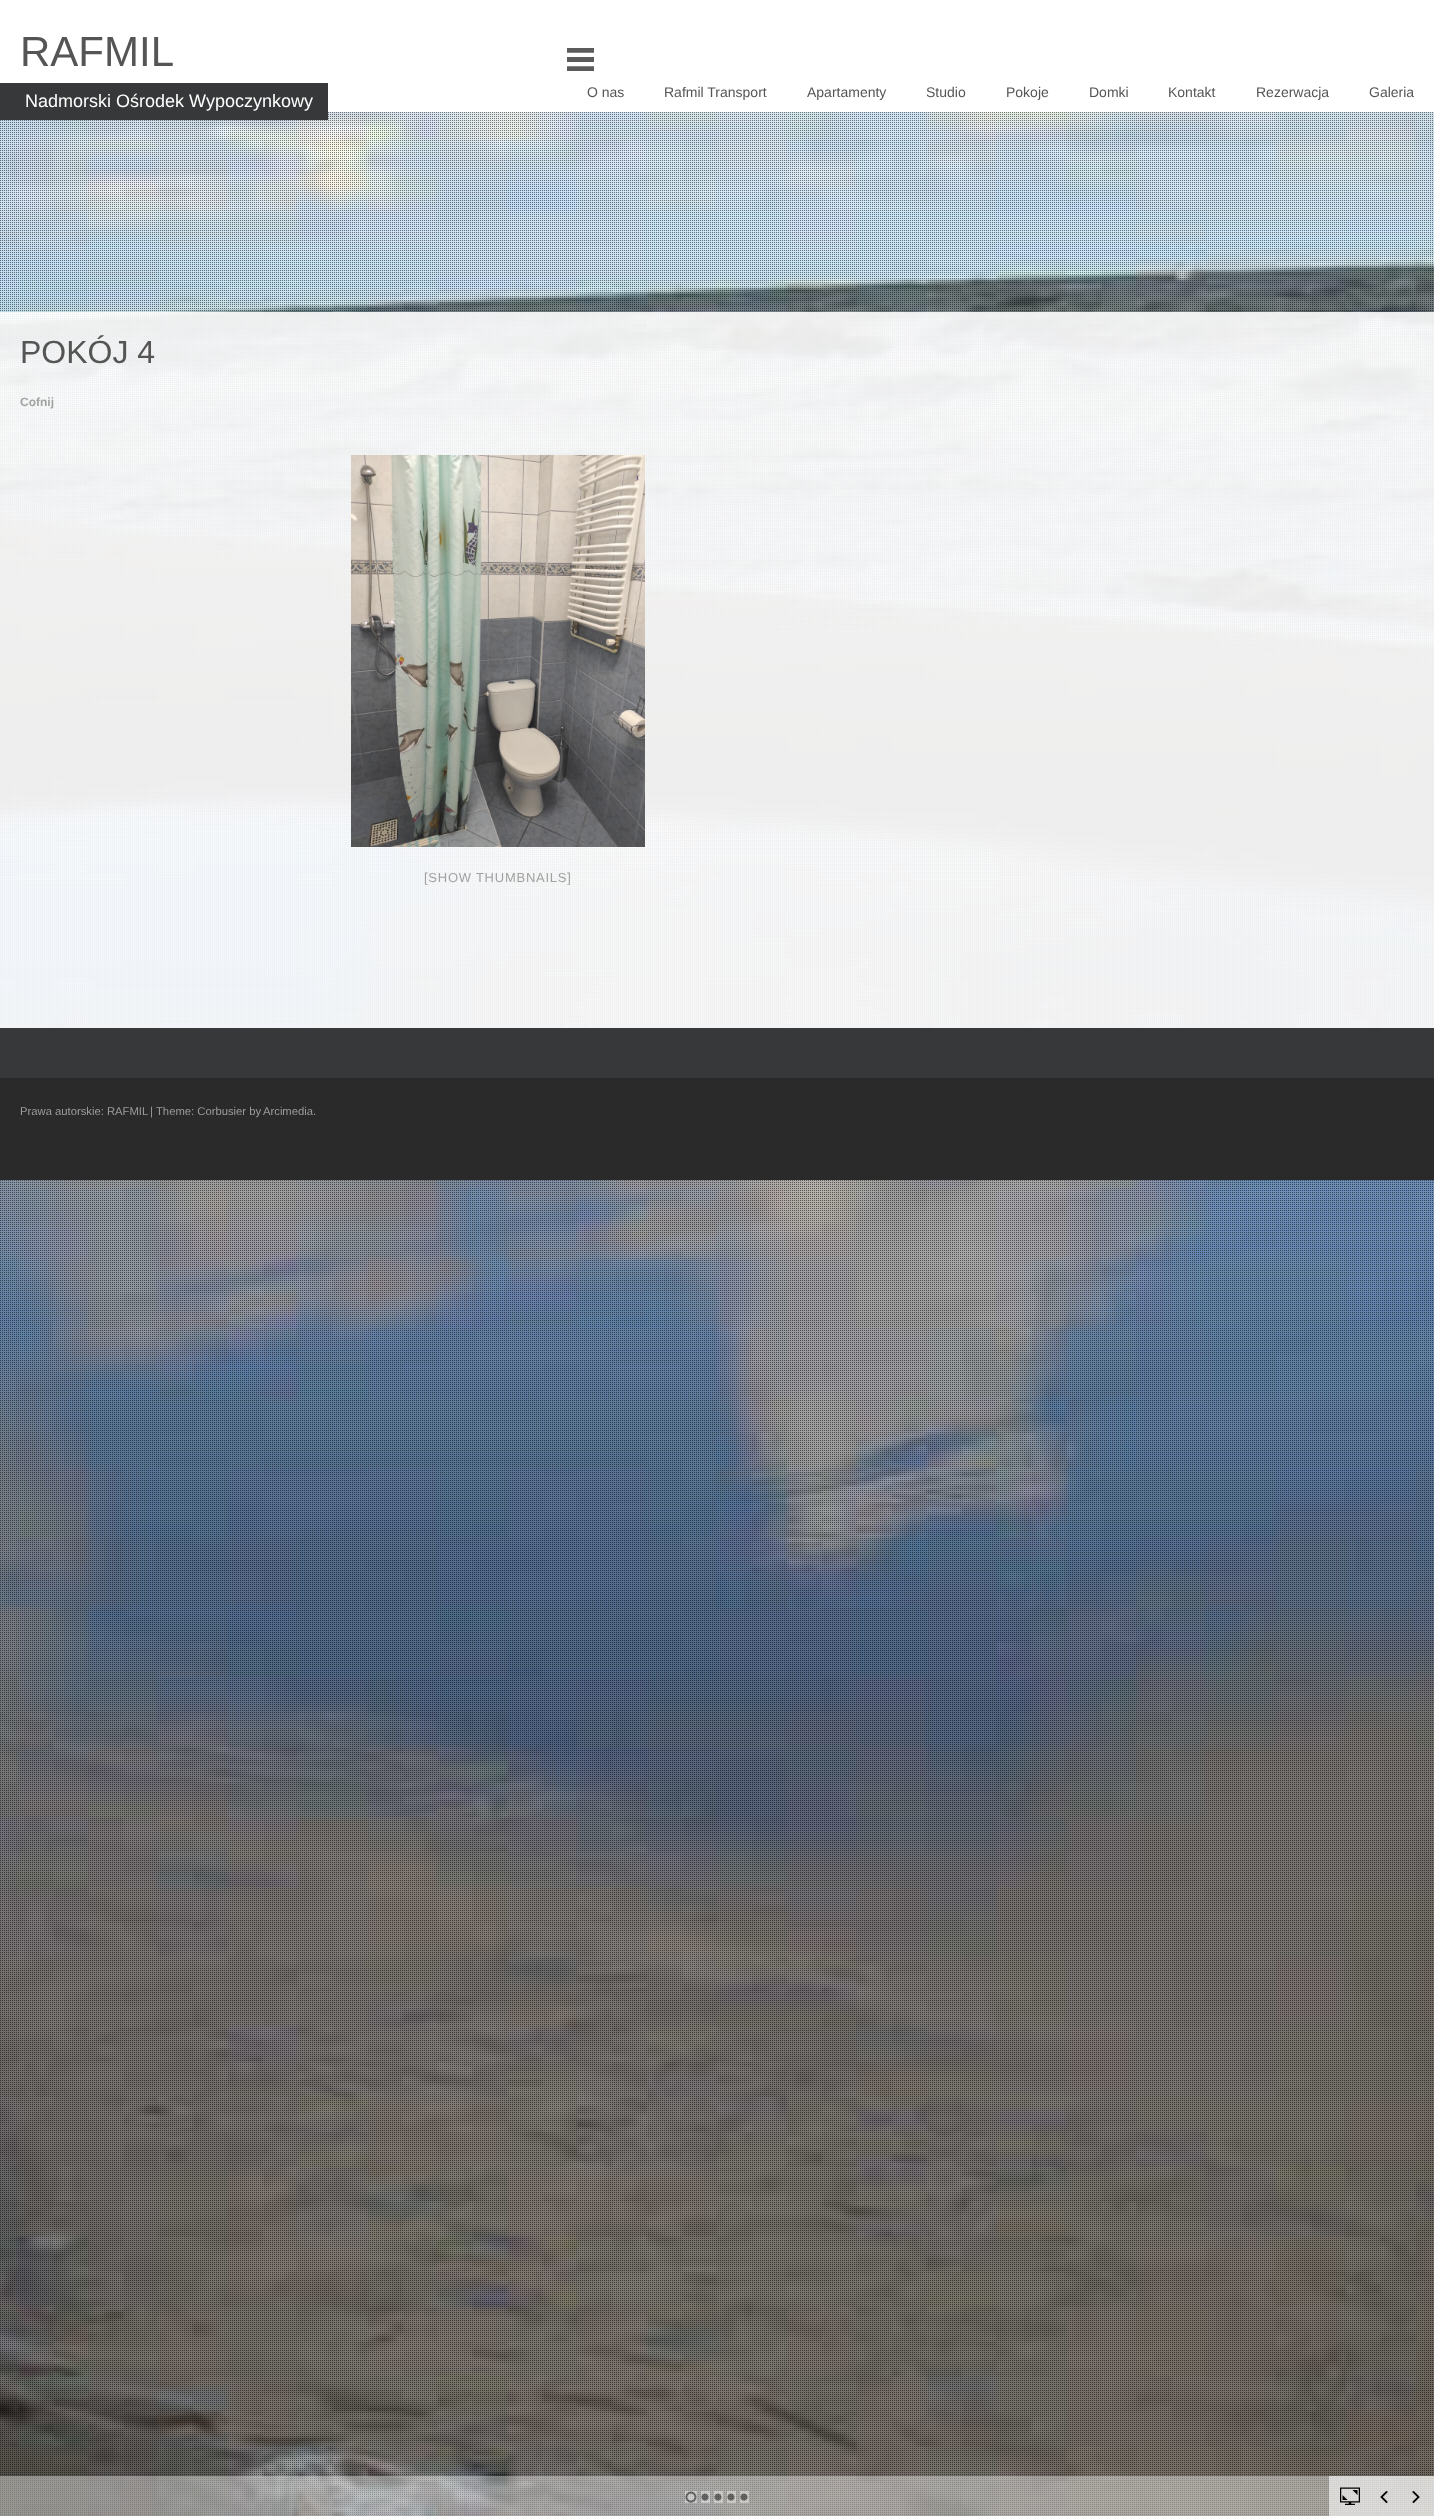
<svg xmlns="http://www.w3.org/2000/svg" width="1434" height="2516">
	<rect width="100%" height="100%" fill="#FFFFFF" />
	<text x="20" y="66" font-family="Liberation Sans" font-size="42" fill="#555555">RAFMIL</text>
	<image x="0" y="112" width="1434" height="2404" href="assets/img3.png" />
	<image x="0" y="112" width="1433" height="2403" href="assets/img4.png" />
	<rect x="0" y="83" width="328" height="37" fill="#373839" />
	<text x="25" y="107" font-family="Liberation Sans" font-size="18" fill="#FFFFFF">Nadmorski Ośrodek Wypoczynkowy</text>
	<image x="567" y="48" width="27" height="23" href="assets/img1.png" />
	<g font-family="Liberation Sans" font-size="14" fill="#555555">
		<text x="587" y="97">O nas</text>
		<text x="664" y="97">Rafmil Transport</text>
		<text x="807" y="97">Apartamenty</text>
		<text x="926" y="97">Studio</text>
		<text x="1006" y="97">Pokoje</text>
		<text x="1089" y="97">Domki</text>
		<text x="1168" y="97">Kontakt</text>
		<text x="1256" y="97">Rezerwacja</text>
		<text x="1369" y="97">Galeria</text>
	</g>
	<rect x="0" y="312" width="1434" height="716" fill="#FFFFFF" fill-opacity="0.9" />
	<text x="20" y="363" font-family="Liberation Sans" font-size="32" fill="#555555">POKÓJ 4</text>
	<text x="20" y="406" font-family="Liberation Sans" font-size="12" font-weight="700" fill="#A2A2A2">Cofnij</text>
	<image x="351" y="455" width="294" height="392" href="assets/img2.png" />
	<text x="424" y="882" font-family="Liberation Sans" font-size="13" letter-spacing="0.75" fill="#A2A2A2">[SHOW THUMBNAILS]</text>
	<rect x="0" y="1028" width="1434" height="50" fill="#373839" />
	<rect x="0" y="1078" width="1434" height="102" fill="#2A2A2A" />
	<g font-family="Liberation Sans" font-size="11.25" fill="#9C9C9C">
		<text x="20" y="1115">Prawa autorskie: RAFMIL</text>
		<text x="150" y="1115">|</text>
		<text x="156" y="1115">Theme: Corbusier by</text>
		<text x="263" y="1115">Arcimedia.</text>
	</g>
	<rect x="0" y="2476" width="1434" height="40" fill="#FFFFFF" fill-opacity="0.4" />
	<image x="685" y="2491" width="12" height="12" href="assets/img5.png" />
	<image x="701" y="2491" width="9" height="12" href="assets/img6.png" />
	<image x="714" y="2491" width="9" height="12" href="assets/img7.png" />
	<image x="727" y="2491" width="9" height="12" href="assets/img8.png" />
	<image x="740" y="2491" width="9" height="12" href="assets/img9.png" />
	<rect x="1329" y="2476" width="105" height="40" fill="#FFFFFF" fill-opacity="0.6" />
	<image x="1340" y="2487" width="20" height="18" href="assets/img10.png" />
	<image x="1380" y="2490" width="8" height="14" href="assets/img11.png" />
	<image x="1412" y="2490" width="8" height="14" href="assets/img12.png" />
</svg>
